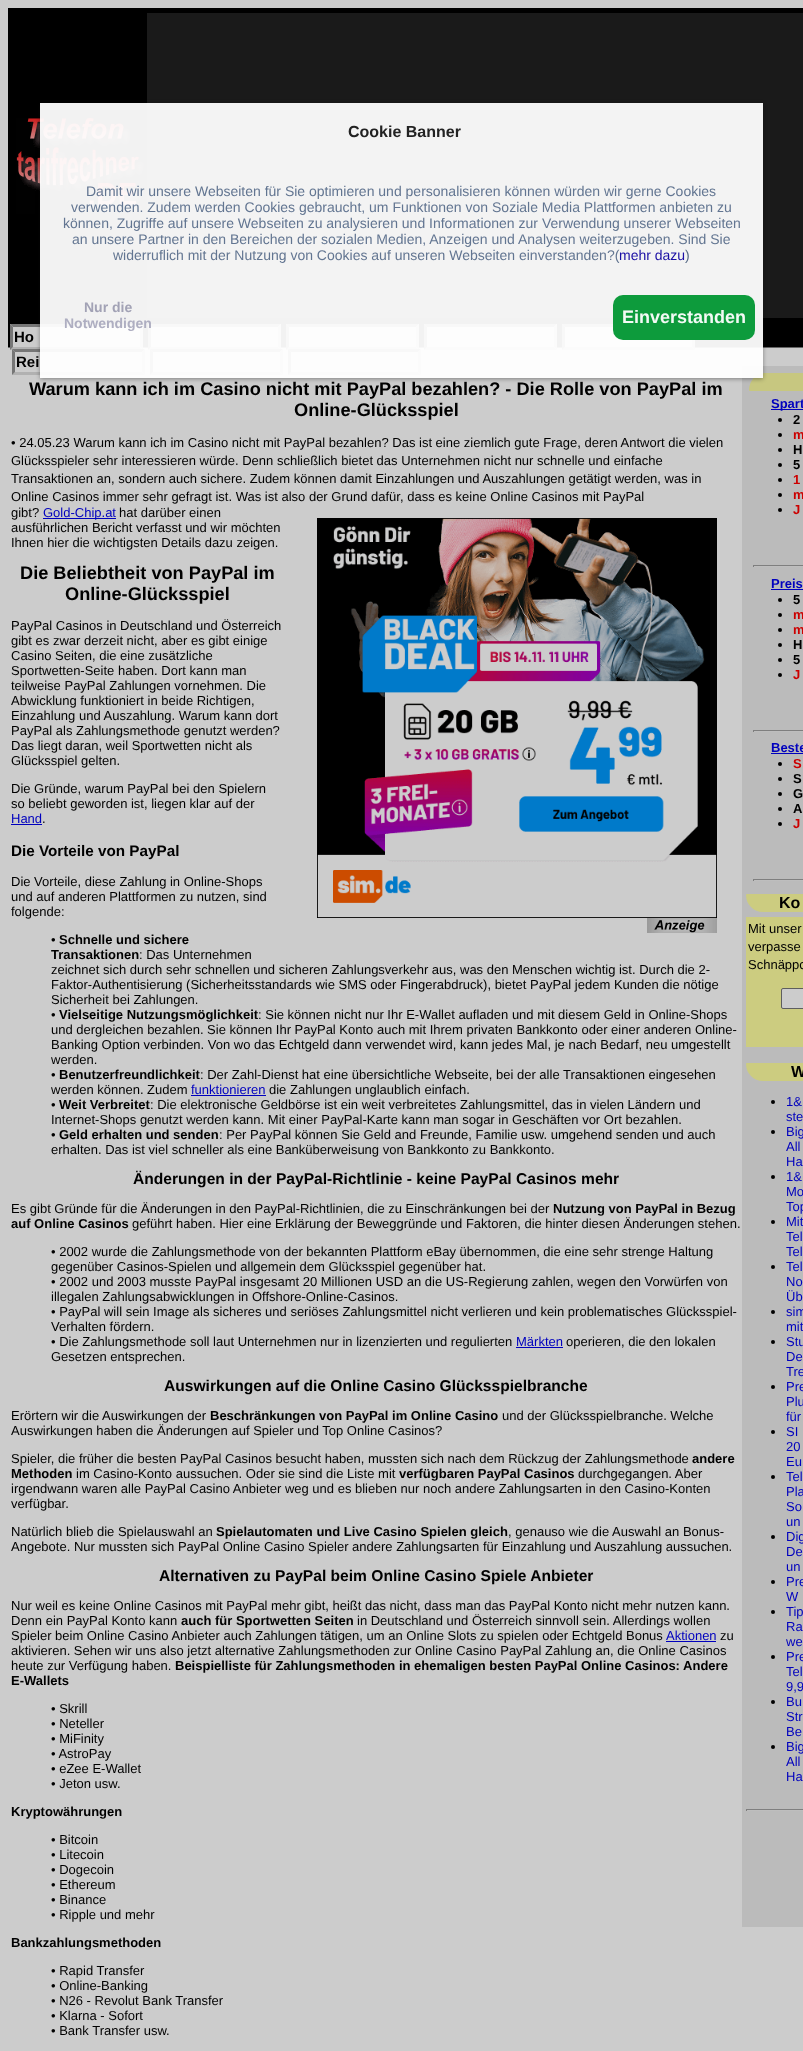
<svg xmlns="http://www.w3.org/2000/svg" width="803" height="2051">
	<defs>
		<clipPath id="clip1"><path d="M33 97H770V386H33ZM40 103H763V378H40Z" clip-rule="evenodd" /></clipPath>
	</defs>
	<rect width="100%" height="100%" fill="#CCCCCC" />
	<rect x="742" y="366" width="61" height="1561" fill="#BBBBBB" />
	<path d="M766 373H803C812.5 373 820 380.5 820 390C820 390.5 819.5 391 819 391H750C749.5 391 749 390.5 749 390C749 380.5 756.5 373 766 373Z" fill="#C7C780" />
	<rect x="8" y="8" width="795" height="339" fill="#000000" />
	<rect x="8" y="347" width="795" height="1" fill="#666666" />
	<image x="16" y="118" width="128" height="96" href="assets/img3.png" />
	<rect x="147" y="13" width="656" height="305" fill="#1A1A1A" />
	<rect x="10" y="324" width="133" height="24" fill="#CCCCCC" />
	<path d="M10 324H143L140 327H13Z" fill="#767676" />
	<path d="M143 324V350L140 347V327Z" fill="#B1B1B1" />
	<path d="M143 350H10L13 347H140Z" fill="#B1B1B1" />
	<rect x="148" y="324" width="133" height="24" fill="#CCCCCC" />
	<path d="M148 324H281L278 327H151Z" fill="#767676" />
	<path d="M281 324V350L278 347V327Z" fill="#B1B1B1" />
	<path d="M281 350H148L151 347H278Z" fill="#B1B1B1" />
	<path d="M148 350V324L151 327V347Z" fill="#767676" />
	<rect x="286" y="324" width="133" height="24" fill="#CCCCCC" />
	<path d="M286 324H419L416 327H289Z" fill="#767676" />
	<path d="M419 324V350L416 347V327Z" fill="#B1B1B1" />
	<path d="M419 350H286L289 347H416Z" fill="#B1B1B1" />
	<path d="M286 350V324L289 327V347Z" fill="#767676" />
	<rect x="424" y="324" width="133" height="24" fill="#CCCCCC" />
	<path d="M424 324H557L554 327H427Z" fill="#767676" />
	<path d="M557 324V350L554 347V327Z" fill="#B1B1B1" />
	<path d="M557 350H424L427 347H554Z" fill="#B1B1B1" />
	<path d="M424 350V324L427 327V347Z" fill="#767676" />
	<rect x="562" y="324" width="133" height="24" fill="#CCCCCC" />
	<path d="M562 324H695L692 327H565Z" fill="#767676" />
	<path d="M695 324V350L692 347V327Z" fill="#B1B1B1" />
	<path d="M695 350H562L565 347H692Z" fill="#B1B1B1" />
	<path d="M562 350V324L565 327V347Z" fill="#767676" />
	<path d="M10 350V324L13 327V347Z" fill="#767676" />
	<rect x="12" y="349" width="131" height="1" fill="#CCCCCC" />
	<path d="M12 349H145L142 352H15Z" fill="#767676" />
	<path d="M145 349V375L142 372V352Z" fill="#B1B1B1" />
	<path d="M145 375H12L15 372H142Z" fill="#B1B1B1" />
	<rect x="150" y="349" width="131" height="1" fill="#CCCCCC" />
	<path d="M150 349H283L280 352H153Z" fill="#767676" />
	<path d="M283 349V375L280 372V352Z" fill="#B1B1B1" />
	<path d="M283 375H150L153 372H280Z" fill="#B1B1B1" />
	<path d="M150 375V349L153 352V372Z" fill="#767676" />
	<rect x="288" y="349" width="131" height="1" fill="#CCCCCC" />
	<path d="M288 349H421L418 352H291Z" fill="#767676" />
	<path d="M421 349V375L418 372V352Z" fill="#B1B1B1" />
	<path d="M421 375H288L291 372H418Z" fill="#B1B1B1" />
	<path d="M288 375V349L291 352V372Z" fill="#767676" />
	<g clip-path="url(#clip1)">
		<rect x="40" y="104" width="723" height="275" fill="#0A0A0A" fill-opacity="0.38" filter="blur(2px)" />
	</g>
	<rect x="40" y="103" width="723" height="275" fill="#FFFFFF" fill-opacity="0.95" />
	<text x="348" y="137" font-family="Liberation Sans" font-size="16" font-weight="700" fill="#222222">Cookie Banner</text>
	<g font-family="Liberation Sans" font-size="14" fill="#627591">
		<text x="86" y="196">Damit wir unsere Webseiten für Sie optimieren und personalisieren können würden wir gerne Cookies</text>
		<text x="71" y="212">verwenden. Zudem werden Cookies gebraucht, um Funktionen von Soziale Media Plattformen anbieten zu</text>
		<text x="63" y="228">können, Zugriffe auf unsere Webseiten zu analysieren und Informationen zur Verwendung unserer Webseiten</text>
		<text x="72" y="244">an unsere Partner in den Bereichen der sozialen Medien, Anzeigen und Analysen weiterzugeben. Sind Sie</text>
		<text x="113" y="260">widerruflich mit der Nutzung von Cookies auf unseren Webseiten einverstanden?(</text>
	</g>
	<text x="619" y="260" font-family="Liberation Sans" font-size="14" fill="#1A0EA4">mehr dazu</text>
	<text x="685" y="260" font-family="Liberation Sans" font-size="14" fill="#576A86">)</text>
	<text x="84" y="312" font-family="Liberation Sans" font-size="14" font-weight="700" fill="#A2A2B5">Nur die</text>
	<text x="64" y="328" font-family="Liberation Sans" font-size="14" font-weight="700" fill="#AEAEC1">Notwendigen</text>
	<rect x="613" y="295" width="142" height="45" rx="10" fill="#009632" fill-opacity="0.95" />
	<text x="622" y="323" font-family="Liberation Sans" font-size="18" font-weight="700" fill="#F3FAF5">Einverstanden</text>
	<g font-family="Liberation Sans" font-size="18.2" font-weight="700" fill="#000000">
		<text x="29" y="395">Warum kann ich im Casino nicht mit PayPal bezahlen? - Die Rolle von PayPal im</text>
		<text x="294" y="416">Online-Glücksspiel</text>
	</g>
	<g font-family="Liberation Sans" font-size="13" fill="#000000">
		<text x="11" y="447">• 24.05.23 Warum kann ich im Casino nicht mit PayPal bezahlen? Das ist eine ziemlich gute Frage, deren Antwort die vielen</text>
		<text x="11" y="465">Glücksspieler sehr interessieren würde. Denn schließlich bietet das Unternehmen nicht nur schnelle und einfache</text>
		<text x="11" y="483">Transaktionen an, sondern auch sichere. Zudem können damit Einzahlungen und Auszahlungen getätigt werden, was in</text>
		<text x="11" y="501">Online Casinos immer sehr gefragt ist. Was ist also der Grund dafür, dass es keine Online Casinos mit PayPal</text>
		<text x="11" y="517">gibt?</text>
	</g>
	<rect x="43" y="518" width="73" height="1" fill="#0000BE" />
	<text x="43" y="517" font-family="Liberation Sans" font-size="13" fill="#0000BE">Gold-Chip.at</text>
	<g font-family="Liberation Sans" font-size="13" fill="#000000">
		<text x="119" y="517">hat darüber einen</text>
		<text x="11" y="532">ausführlichen Bericht verfasst und wir möchten</text>
	</g>
	<image x="317" y="518" width="400" height="400" href="assets/img1.png" />
	<image x="647" y="918" width="70" height="15" href="assets/img2.png" />
	<text x="11" y="547" font-family="Liberation Sans" font-size="13" fill="#000000">Ihnen hier die wichtigsten Details dazu zeigen.</text>
	<g font-family="Liberation Sans" font-size="18.2" font-weight="700" fill="#000000">
		<text x="20" y="579">Die Beliebtheit von PayPal im</text>
		<text x="65" y="600">Online-Glücksspiel</text>
	</g>
	<g font-family="Liberation Sans" font-size="13" fill="#000000">
		<text x="11" y="630">PayPal Casinos in Deutschland und Österreich</text>
		<text x="11" y="645">gibt es zwar derzeit nicht, aber es gibt einige</text>
		<text x="11" y="660">Casino Seiten, die eine zusätzliche</text>
		<text x="11" y="675">Sportwetten-Seite haben. Dort kann man</text>
		<text x="11" y="690">teilweise PayPal Zahlungen vornehmen. Die</text>
		<text x="11" y="705">Abwicklung funktioniert in beide Richtigen,</text>
		<text x="11" y="720">Einzahlung und Auszahlung. Warum kann dort</text>
		<text x="11" y="735">PayPal als Zahlungsmethode genutzt werden?</text>
		<text x="11" y="750">Das liegt daran, weil Sportwetten nicht als</text>
		<text x="11" y="765">Glücksspiel gelten.</text>
		<text x="11" y="793">Die Gründe, warum PayPal bei den Spielern</text>
		<text x="11" y="808">so beliebt geworden ist, liegen klar auf der</text>
	</g>
	<text x="11" y="823" font-family="Liberation Sans" font-size="13" fill="#0000BE">Hand</text>
	<rect x="11" y="824" width="31" height="1" fill="#0000BE" />
	<text x="42" y="823" font-family="Liberation Sans" font-size="13" fill="#000000">.</text>
	<text x="11" y="856" font-family="Liberation Sans" font-size="15.25" font-weight="700" fill="#000000">Die Vorteile von PayPal</text>
	<g font-family="Liberation Sans" font-size="13" fill="#000000">
		<text x="11" y="886">Die Vorteile, diese Zahlung in Online-Shops</text>
		<text x="11" y="901">und auf anderen Plattformen zu nutzen, sind</text>
		<text x="11" y="916">folgende:</text>
		<text x="51" y="944">•</text>
	</g>
	<g font-family="Liberation Sans" font-size="13" font-weight="700" fill="#000000">
		<text x="59" y="944">Schnelle und sichere</text>
		<text x="51" y="959">Transaktionen</text>
	</g>
	<g font-family="Liberation Sans" font-size="13" fill="#000000">
		<text x="139" y="959">: Das Unternehmen</text>
		<text x="51" y="974">zeichnet sich durch sehr schnellen und sicheren Zahlungsverkehr aus, was den Menschen wichtig ist. Durch die 2-</text>
		<text x="51" y="989">Faktor-Authentisierung (Sicherheitsstandards wie SMS oder Fingerabdruck), bietet PayPal jedem Kunden die nötige</text>
		<text x="51" y="1004">Sicherheit bei Zahlungen.</text>
		<text x="51" y="1019">•</text>
	</g>
	<text x="59" y="1019" font-family="Liberation Sans" font-size="13" font-weight="700" fill="#000000">Vielseitige Nutzungsmöglichkeit</text>
	<g font-family="Liberation Sans" font-size="13" fill="#000000">
		<text x="258" y="1019">: Sie können nicht nur Ihr E-Wallet aufladen und mit diesem Geld in Online-Shops</text>
		<text x="51" y="1034">und dergleichen bezahlen. Sie können Ihr PayPal Konto auch mit Ihrem privaten Bankkonto oder einer anderen Online-</text>
		<text x="51" y="1049">Banking Option verbinden. Von wo das Echtgeld dann verwendet wird, kann jedes Mal, je nach Bedarf, neu umgestellt</text>
		<text x="51" y="1064">werden.</text>
		<text x="51" y="1079">•</text>
	</g>
	<text x="59" y="1079" font-family="Liberation Sans" font-size="13" font-weight="700" fill="#000000">Benutzerfreundlichkeit</text>
	<g font-family="Liberation Sans" font-size="13" fill="#000000">
		<text x="200" y="1079">: Der Zahl-Dienst hat eine übersichtliche Webseite, bei der alle Transaktionen eingesehen</text>
		<text x="51" y="1094">werden können. Zudem</text>
	</g>
	<text x="191" y="1094" font-family="Liberation Sans" font-size="13" fill="#0000BE">funktionieren</text>
	<rect x="191" y="1095" width="75" height="1" fill="#0000BE" />
	<g font-family="Liberation Sans" font-size="13" fill="#000000">
		<text x="269" y="1094">die Zahlungen unglaublich einfach.</text>
		<text x="51" y="1109">•</text>
	</g>
	<text x="59" y="1109" font-family="Liberation Sans" font-size="13" font-weight="700" fill="#000000">Weit Verbreitet</text>
	<g font-family="Liberation Sans" font-size="13" fill="#000000">
		<text x="150" y="1109">: Die elektronische Geldbörse ist ein weit verbreitetes Zahlungsmittel, das in vielen Ländern und</text>
		<text x="51" y="1124">Internet-Shops genutzt werden kann. Mit einer PayPal-Karte kann man sogar in Geschäften vor Ort bezahlen.</text>
		<text x="51" y="1139">•</text>
	</g>
	<text x="59" y="1139" font-family="Liberation Sans" font-size="13" font-weight="700" fill="#000000">Geld erhalten und senden</text>
	<g font-family="Liberation Sans" font-size="13" fill="#000000">
		<text x="219" y="1139">: Per PayPal können Sie Geld and Freunde, Familie usw. umgehend senden und auch</text>
		<text x="51" y="1154">erhalten. Das ist viel schneller als eine Banküberweisung von Bankkonto zu Bankkonto.</text>
	</g>
	<text x="133" y="1184" font-family="Liberation Sans" font-size="15.6" font-weight="700" fill="#000000">Änderungen in der PayPal-Richtlinie - keine PayPal Casinos mehr</text>
	<text x="11" y="1213" font-family="Liberation Sans" font-size="13" fill="#000000">Es gibt Gründe für die Änderungen in den PayPal-Richtlinien, die zu Einschränkungen bei der</text>
	<g font-family="Liberation Sans" font-size="13" font-weight="700" fill="#000000">
		<text x="553" y="1213">Nutzung von PayPal in Bezug</text>
		<text x="11" y="1228">auf Online Casinos</text>
	</g>
	<g font-family="Liberation Sans" font-size="13" fill="#000000">
		<text x="132" y="1228">geführt haben. Hier eine Erklärung der Beweggründe und Faktoren, die hinter diesen Änderungen stehen.</text>
		<text x="51" y="1256">• 2002 wurde die Zahlungsmethode von der bekannten Plattform eBay übernommen, die eine sehr strenge Haltung</text>
		<text x="51" y="1271">gegenüber Casinos-Spielen und allgemein dem Glücksspiel gegenüber hat.</text>
		<text x="51" y="1286">• 2002 und 2003 musste PayPal insgesamt 20 Millionen USD an die US-Regierung zahlen, wegen den Vorwürfen von</text>
		<text x="51" y="1301">illegalen Zahlungsabwicklungen in Offshore-Online-Casinos.</text>
		<text x="51" y="1316">• PayPal will sein Image als sicheres und seriöses Zahlungsmittel nicht verlieren und kein problematisches Glücksspiel-</text>
		<text x="51" y="1331">Verhalten fördern.</text>
		<text x="51" y="1346">• Die Zahlungsmethode soll laut Unternehmen nur in lizenzierten und regulierten</text>
	</g>
	<text x="516" y="1346" font-family="Liberation Sans" font-size="13" fill="#0000BE">Märkten</text>
	<rect x="516" y="1347" width="47" height="1" fill="#0000BE" />
	<g font-family="Liberation Sans" font-size="13" fill="#000000">
		<text x="566" y="1346">operieren, die den lokalen</text>
		<text x="51" y="1361">Gesetzen entsprechen.</text>
	</g>
	<text x="164" y="1391" font-family="Liberation Sans" font-size="15.6" font-weight="700" fill="#000000">Auswirkungen auf die Online Casino Glücksspielbranche</text>
	<text x="11" y="1420" font-family="Liberation Sans" font-size="13" fill="#000000">Erörtern wir die Auswirkungen der</text>
	<text x="210" y="1420" font-family="Liberation Sans" font-size="13" font-weight="700" fill="#000000">Beschränkungen von PayPal im Online Casino</text>
	<g font-family="Liberation Sans" font-size="13" fill="#000000">
		<text x="502" y="1420">und der Glücksspielbranche. Welche</text>
		<text x="11" y="1435">Auswirkungen haben die Änderungen auf Spieler und Top Online Casinos?</text>
		<text x="11" y="1463">Spieler, die früher die besten PayPal Casinos besucht haben, mussten sich nach dem Rückzug der Zahlungsmethode</text>
	</g>
	<g font-family="Liberation Sans" font-size="13" font-weight="700" fill="#000000">
		<text x="692" y="1463">andere</text>
		<text x="11" y="1478">Methoden</text>
	</g>
	<text x="76" y="1478" font-family="Liberation Sans" font-size="13" fill="#000000">im Casino-Konto aussuchen. Oder sie sind die Liste mit</text>
	<text x="399" y="1478" font-family="Liberation Sans" font-size="13" font-weight="700" fill="#000000">verfügbaren PayPal Casinos</text>
	<g font-family="Liberation Sans" font-size="13" fill="#000000">
		<text x="578" y="1478">durchgegangen. Aber</text>
		<text x="11" y="1493">irgendwann waren alle PayPal Casino Anbieter weg und es blieben nur noch andere Zahlungsarten in den Casino-Konten</text>
		<text x="11" y="1508">verfügbar.</text>
		<text x="11" y="1536">Natürlich blieb die Spielauswahl an</text>
	</g>
	<text x="216" y="1536" font-family="Liberation Sans" font-size="13" font-weight="700" fill="#000000">Spielautomaten und Live Casino Spielen gleich</text>
	<g font-family="Liberation Sans" font-size="13" fill="#000000">
		<text x="508" y="1536">, genauso wie die Auswahl an Bonus-</text>
		<text x="11" y="1551">Angebote. Nur mussten sich PayPal Online Casino Spieler andere Zahlungsarten für Einzahlung und Auszahlung aussuchen.</text>
	</g>
	<text x="159" y="1581" font-family="Liberation Sans" font-size="15.6" font-weight="700" fill="#000000">Alternativen zu PayPal beim Online Casino Spiele Anbieter</text>
	<g font-family="Liberation Sans" font-size="13" fill="#000000">
		<text x="11" y="1610">Nur weil es keine Online Casinos mit PayPal mehr gibt, heißt das nicht, dass man das PayPal Konto nicht mehr nutzen kann.</text>
		<text x="11" y="1625">Denn ein PayPal Konto kann</text>
	</g>
	<text x="181" y="1625" font-family="Liberation Sans" font-size="13" font-weight="700" fill="#000000">auch für Sportwetten Seiten</text>
	<g font-family="Liberation Sans" font-size="13" fill="#000000">
		<text x="357" y="1625">in Deutschland und Österreich sinnvoll sein. Allerdings wollen</text>
		<text x="11" y="1640">Spieler beim Online Casino Anbieter auch Zahlungen tätigen, um an Online Slots zu spielen oder Echtgeld Bonus</text>
	</g>
	<text x="666" y="1640" font-family="Liberation Sans" font-size="13" fill="#0000BE">Aktionen</text>
	<rect x="666" y="1641" width="50" height="1" fill="#0000BE" />
	<g font-family="Liberation Sans" font-size="13" fill="#000000">
		<text x="720" y="1640">zu</text>
		<text x="11" y="1655">aktivieren. Sehen wir uns also jetzt alternative Zahlungsmethoden zur Online Casino PayPal Zahlung an, die Online Casinos</text>
		<text x="11" y="1670">heute zur Verfügung haben.</text>
	</g>
	<g font-family="Liberation Sans" font-size="13" font-weight="700" fill="#000000">
		<text x="175" y="1670">Beispielliste für Zahlungsmethoden in ehemaligen besten PayPal Online Casinos: Andere</text>
		<text x="11" y="1685">E-Wallets</text>
	</g>
	<g font-family="Liberation Sans" font-size="13" fill="#000000">
		<text x="51" y="1713">• Skrill</text>
		<text x="51" y="1728">• Neteller</text>
		<text x="51" y="1743">• MiFinity</text>
		<text x="51" y="1758">• AstroPay</text>
		<text x="51" y="1773">• eZee E-Wallet</text>
		<text x="51" y="1788">• Jeton usw.</text>
	</g>
	<text x="11" y="1816" font-family="Liberation Sans" font-size="13" font-weight="700" fill="#000000">Kryptowährungen</text>
	<g font-family="Liberation Sans" font-size="13" fill="#000000">
		<text x="51" y="1844">• Bitcoin</text>
		<text x="51" y="1859">• Litecoin</text>
		<text x="51" y="1874">• Dogecoin</text>
		<text x="51" y="1889">• Ethereum</text>
		<text x="51" y="1904">• Binance</text>
		<text x="51" y="1919">• Ripple und mehr</text>
	</g>
	<text x="11" y="1947" font-family="Liberation Sans" font-size="13" font-weight="700" fill="#000000">Bankzahlungsmethoden</text>
	<g font-family="Liberation Sans" font-size="13" fill="#000000">
		<text x="51" y="1975">• Rapid Transfer</text>
		<text x="51" y="1990">• Online-Banking</text>
		<text x="51" y="2005">• N26 - Revolut Bank Transfer</text>
		<text x="51" y="2020">• Klarna - Sofort</text>
		<text x="51" y="2035">• Bank Transfer usw.</text>
	</g>
	<rect x="771" y="409" width="32" height="1" fill="#0000BE" />
	<text x="771" y="408" font-family="Liberation Sans" font-size="13" font-weight="700" fill="#0000BE">Spart</text>
	<circle cx="780" cy="420" r="2" fill="#000000" />
	<text x="793" y="424" font-family="Liberation Sans" font-size="13" font-weight="700" fill="#000000">2</text>
	<circle cx="780" cy="435" r="2" fill="#000000" />
	<text x="793" y="439" font-family="Liberation Sans" font-size="13" font-weight="700" fill="#CC0000">m</text>
	<circle cx="780" cy="450" r="2" fill="#000000" />
	<text x="793" y="454" font-family="Liberation Sans" font-size="13" font-weight="700" fill="#000000">H</text>
	<circle cx="780" cy="465" r="2" fill="#000000" />
	<text x="793" y="469" font-family="Liberation Sans" font-size="13" font-weight="700" fill="#000000">5</text>
	<circle cx="780" cy="480" r="2" fill="#000000" />
	<text x="793" y="484" font-family="Liberation Sans" font-size="13" font-weight="700" fill="#CC0000">1</text>
	<circle cx="780" cy="495" r="2" fill="#000000" />
	<text x="793" y="499" font-family="Liberation Sans" font-size="13" font-weight="700" fill="#CC0000">m</text>
	<circle cx="780" cy="510" r="2" fill="#000000" />
	<text x="793" y="514" font-family="Liberation Sans" font-size="13" font-weight="700" fill="#CC0000">J</text>
	<rect x="753" y="565" width="50" height="1" fill="#7F7F7F" />
	<rect x="753" y="566" width="50" height="1" fill="#BEBEBE" />
	<rect x="753" y="565" width="1" height="2" fill="#7F7F7F" />
	<text x="771" y="588" font-family="Liberation Sans" font-size="13" font-weight="700" fill="#0000BE">Preis</text>
	<rect x="771" y="589" width="32" height="1" fill="#0000BE" />
	<circle cx="780" cy="600" r="2" fill="#000000" />
	<text x="793" y="604" font-family="Liberation Sans" font-size="13" font-weight="700" fill="#000000">5</text>
	<circle cx="780" cy="615" r="2" fill="#000000" />
	<text x="793" y="619" font-family="Liberation Sans" font-size="13" font-weight="700" fill="#CC0000">m</text>
	<circle cx="780" cy="630" r="2" fill="#000000" />
	<text x="793" y="634" font-family="Liberation Sans" font-size="13" font-weight="700" fill="#CC0000">m</text>
	<circle cx="780" cy="645" r="2" fill="#000000" />
	<text x="793" y="649" font-family="Liberation Sans" font-size="13" font-weight="700" fill="#000000">H</text>
	<circle cx="780" cy="660" r="2" fill="#000000" />
	<text x="793" y="664" font-family="Liberation Sans" font-size="13" font-weight="700" fill="#000000">5</text>
	<circle cx="780" cy="675" r="2" fill="#000000" />
	<text x="793" y="679" font-family="Liberation Sans" font-size="13" font-weight="700" fill="#CC0000">J</text>
	<rect x="753" y="730" width="50" height="1" fill="#7F7F7F" />
	<rect x="753" y="731" width="50" height="1" fill="#BEBEBE" />
	<rect x="753" y="730" width="1" height="2" fill="#7F7F7F" />
	<text x="771" y="752" font-family="Liberation Sans" font-size="13" font-weight="700" fill="#0000BE">Beste</text>
	<rect x="771" y="753" width="32" height="1" fill="#0000BE" />
	<circle cx="780" cy="764" r="2" fill="#000000" />
	<text x="793" y="768" font-family="Liberation Sans" font-size="13" font-weight="700" fill="#CC0000">S</text>
	<circle cx="780" cy="779" r="2" fill="#000000" />
	<text x="793" y="783" font-family="Liberation Sans" font-size="13" font-weight="700" fill="#000000">S</text>
	<circle cx="780" cy="794" r="2" fill="#000000" />
	<text x="793" y="798" font-family="Liberation Sans" font-size="13" font-weight="700" fill="#000000">G</text>
	<circle cx="780" cy="809" r="2" fill="#000000" />
	<text x="793" y="813" font-family="Liberation Sans" font-size="13" font-weight="700" fill="#000000">A</text>
	<circle cx="780" cy="824" r="2" fill="#000000" />
	<text x="793" y="828" font-family="Liberation Sans" font-size="13" font-weight="700" fill="#CC0000">J</text>
	<rect x="753" y="879" width="50" height="1" fill="#7F7F7F" />
	<rect x="753" y="880" width="50" height="1" fill="#BEBEBE" />
	<rect x="753" y="879" width="1" height="2" fill="#7F7F7F" />
	<path d="M747 894H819C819.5 894 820 894.5 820 895C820 904.5 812.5 912 803 912H763C753.5 912 746 904.5 746 895C746 894.5 746.5 894 747 894Z" fill="#CCCC80" />
	<text x="779" y="908" font-family="Liberation Sans" font-size="16" font-weight="700" fill="#000000">Ko</text>
	<rect x="746" y="917" width="57" height="130" fill="#CCCC80" />
	<g font-family="Liberation Sans" font-size="13" fill="#000000">
		<text x="748" y="933">Mit unser</text>
		<text x="748" y="951">verpasse</text>
		<text x="748" y="969">Schnäppc</text>
	</g>
	<rect x="781.5" y="988.5" width="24" height="20" rx="1.5" fill="#CCCCCC" stroke="#5E5E5E" />
	<path d="M747 1063H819C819.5 1063 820 1063.5 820 1064C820 1073.5 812.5 1081 803 1081H763C753.5 1081 746 1073.5 746 1064C746 1063.5 746.5 1063 747 1063Z" fill="#CCCC80" />
	<text x="791" y="1077" font-family="Liberation Sans" font-size="16" font-weight="700" fill="#000000">W</text>
	<circle cx="773" cy="1102" r="2" fill="#000000" />
	<g font-family="Liberation Sans" font-size="13" fill="#0000BE">
		<text x="786" y="1106">1&amp;</text>
		<text x="786" y="1121">ste</text>
	</g>
	<circle cx="773" cy="1132" r="2" fill="#000000" />
	<g font-family="Liberation Sans" font-size="13" fill="#0000BE">
		<text x="786" y="1136">Big</text>
		<text x="786" y="1151">All</text>
		<text x="786" y="1166">Ha</text>
	</g>
	<circle cx="773" cy="1177" r="2" fill="#000000" />
	<g font-family="Liberation Sans" font-size="13" fill="#0000BE">
		<text x="786" y="1181">1&amp;</text>
		<text x="786" y="1196">Mo</text>
		<text x="786" y="1211">Top</text>
	</g>
	<circle cx="773" cy="1222" r="2" fill="#000000" />
	<g font-family="Liberation Sans" font-size="13" fill="#0000BE">
		<text x="786" y="1226">Mit</text>
		<text x="786" y="1241">Tel</text>
		<text x="786" y="1256">Tel</text>
	</g>
	<circle cx="773" cy="1267" r="2" fill="#000000" />
	<g font-family="Liberation Sans" font-size="13" fill="#0000BE">
		<text x="786" y="1271">Tel</text>
		<text x="786" y="1286">No</text>
		<text x="786" y="1301">Üb</text>
	</g>
	<circle cx="773" cy="1312" r="2" fill="#000000" />
	<g font-family="Liberation Sans" font-size="13" fill="#0000BE">
		<text x="786" y="1316">sim</text>
		<text x="786" y="1331">mit</text>
	</g>
	<circle cx="773" cy="1342" r="2" fill="#000000" />
	<g font-family="Liberation Sans" font-size="13" fill="#0000BE">
		<text x="786" y="1346">Stu</text>
		<text x="786" y="1361">De</text>
		<text x="786" y="1376">Tre</text>
	</g>
	<circle cx="773" cy="1387" r="2" fill="#000000" />
	<g font-family="Liberation Sans" font-size="13" fill="#0000BE">
		<text x="786" y="1391">Pre</text>
		<text x="786" y="1406">Plu</text>
		<text x="786" y="1421">für</text>
	</g>
	<circle cx="773" cy="1432" r="2" fill="#000000" />
	<g font-family="Liberation Sans" font-size="13" fill="#0000BE">
		<text x="786" y="1436">SI</text>
		<text x="786" y="1451">20</text>
		<text x="786" y="1466">Eu</text>
	</g>
	<circle cx="773" cy="1477" r="2" fill="#000000" />
	<g font-family="Liberation Sans" font-size="13" fill="#0000BE">
		<text x="786" y="1481">Tel</text>
		<text x="786" y="1496">Pla</text>
		<text x="786" y="1511">So</text>
		<text x="786" y="1526">un</text>
	</g>
	<circle cx="773" cy="1537" r="2" fill="#000000" />
	<g font-family="Liberation Sans" font-size="13" fill="#0000BE">
		<text x="786" y="1541">Dig</text>
		<text x="786" y="1556">De</text>
		<text x="786" y="1571">un</text>
	</g>
	<circle cx="773" cy="1582" r="2" fill="#000000" />
	<g font-family="Liberation Sans" font-size="13" fill="#0000BE">
		<text x="786" y="1586">Pre</text>
		<text x="786" y="1601">W</text>
	</g>
	<circle cx="773" cy="1612" r="2" fill="#000000" />
	<g font-family="Liberation Sans" font-size="13" fill="#0000BE">
		<text x="786" y="1616">Tip</text>
		<text x="786" y="1631">Ra</text>
		<text x="786" y="1646">we</text>
	</g>
	<circle cx="773" cy="1657" r="2" fill="#000000" />
	<g font-family="Liberation Sans" font-size="13" fill="#0000BE">
		<text x="786" y="1661">Pre</text>
		<text x="786" y="1676">Tel</text>
		<text x="786" y="1691">9,9</text>
	</g>
	<circle cx="773" cy="1702" r="2" fill="#000000" />
	<g font-family="Liberation Sans" font-size="13" fill="#0000BE">
		<text x="786" y="1706">Bu</text>
		<text x="786" y="1721">Str</text>
		<text x="786" y="1736">Be</text>
	</g>
	<circle cx="773" cy="1747" r="2" fill="#000000" />
	<g font-family="Liberation Sans" font-size="13" fill="#0000BE">
		<text x="786" y="1751">Big</text>
		<text x="786" y="1766">All</text>
		<text x="786" y="1781">Ha</text>
	</g>
	<rect x="746" y="1809" width="57" height="1" fill="#7F7F7F" />
	<rect x="746" y="1810" width="57" height="1" fill="#BEBEBE" />
	<rect x="746" y="1809" width="1" height="2" fill="#7F7F7F" />
	<text x="14" y="342" font-family="Liberation Sans" font-size="15" font-weight="700" fill="#000000">Ho</text>
	<path d="M12 375V349L15 352V372Z" fill="#767676" />
	<text x="16" y="367" font-family="Liberation Sans" font-size="15" font-weight="700" fill="#000000">Rei</text>
</svg>
